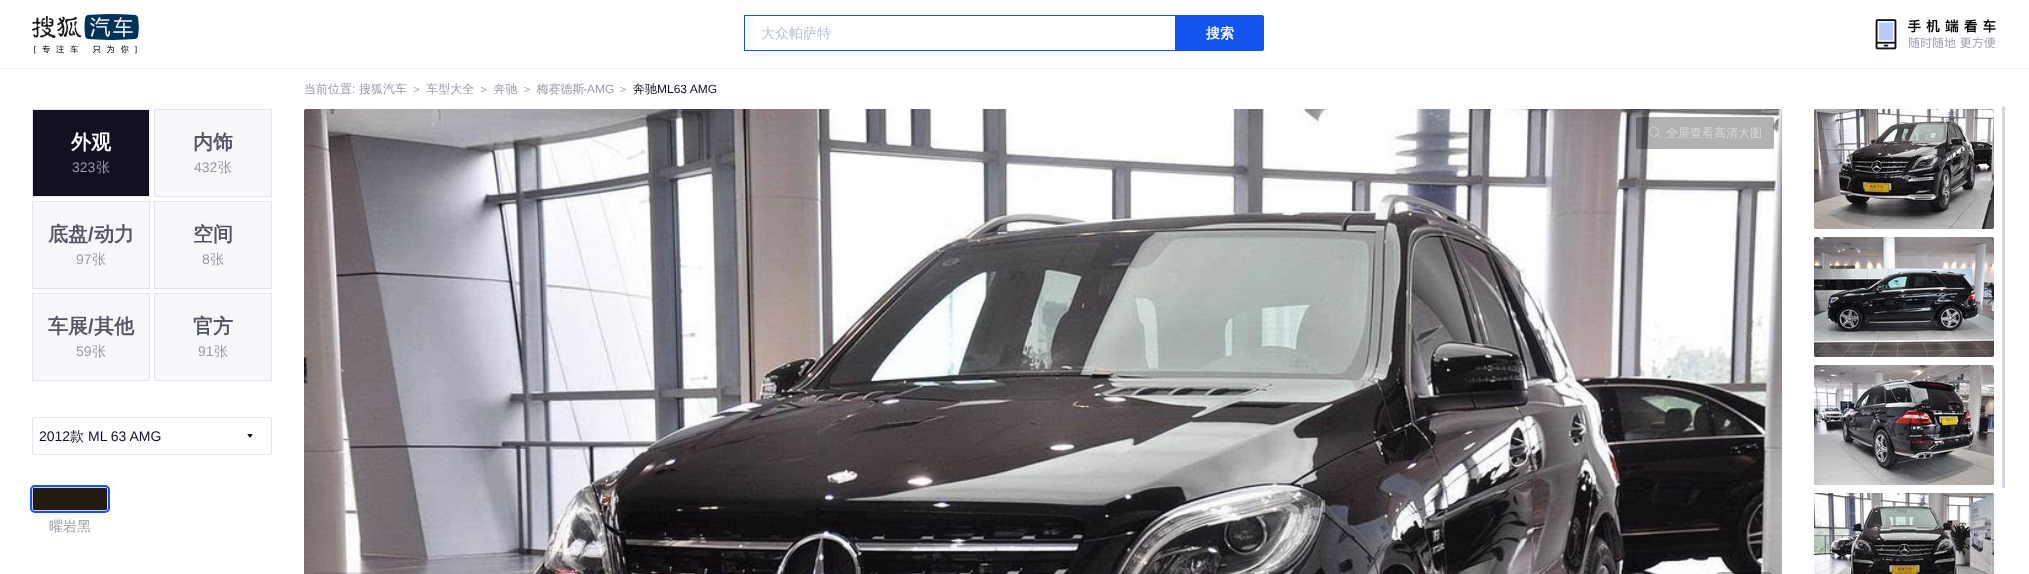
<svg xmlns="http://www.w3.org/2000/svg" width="2029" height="574">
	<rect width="100%" height="100%" fill="#FFFFFF" />
	<rect x="0" y="68" width="2029" height="1" fill="#EEEEF0" />
	<image x="32" y="14" width="107" height="40" href="assets/img1.png" />
	<rect x="744.5" y="15.5" width="431" height="35" fill="none" stroke="#1155EE" />
	<text x="761" y="38" font-family="WenQuanYi Zen Hei" font-size="14" font-weight="500" fill="#BBC2CC">大众帕萨特</text>
	<path d="M1176 15H1262C1263 15 1264 16 1264 17V49C1264 50 1263 51 1262 51H1176Z" fill="#1155EE" />
	<text x="1206" y="38" font-family="WenQuanYi Zen Hei" font-size="14" font-weight="700" fill="#FFFFFF">搜索</text>
	<image x="1875" y="19" width="121" height="31" href="assets/img2.png" />
	<text x="304" y="93" font-family="WenQuanYi Zen Hei" font-size="12" font-weight="500" fill="#9999AA">当前位置</text>
	<text x="352" y="93" font-family="Liberation Sans" font-size="12" fill="#9999AA">:</text>
	<text x="359" y="93" font-family="WenQuanYi Zen Hei" font-size="12" font-weight="500" fill="#9999AA">搜狐汽车 ＞ 车型大全 ＞ 奔驰 ＞ 梅赛德斯</text>
	<text x="583" y="93" font-family="Liberation Sans" font-size="12" fill="#9999AA">-AMG</text>
	<text x="617" y="93" font-family="WenQuanYi Zen Hei" font-size="12" font-weight="500" fill="#9999AA">＞</text>
	<text x="633" y="93" font-family="WenQuanYi Zen Hei" font-size="12" font-weight="500" fill="#111122">奔驰</text>
	<text x="657" y="93" font-family="Liberation Sans" font-size="12" fill="#111122">ML63 AMG</text>
	<rect x="32.5" y="109.5" width="117" height="87" fill="#111122" stroke="#E5E5EE" />
	<text x="71" y="149" font-family="WenQuanYi Zen Hei" font-size="20" font-weight="700" fill="#FFFFFF">外观</text>
	<text x="72" y="172" font-family="Liberation Sans" font-size="14" fill="#9999AA">323</text>
	<text x="96" y="172" font-family="WenQuanYi Zen Hei" font-size="14" font-weight="500" fill="#9999AA">张</text>
	<rect x="154.5" y="109.5" width="117" height="87" fill="#F7F8FC" stroke="#E5E5EE" />
	<text x="193" y="149" font-family="WenQuanYi Zen Hei" font-size="20" font-weight="700" fill="#555566">内饰</text>
	<text x="194" y="172" font-family="Liberation Sans" font-size="14" fill="#9999AA">432</text>
	<text x="218" y="172" font-family="WenQuanYi Zen Hei" font-size="14" font-weight="500" fill="#9999AA">张</text>
	<rect x="32.5" y="201.5" width="117" height="87" fill="#F7F8FC" stroke="#E5E5EE" />
	<text x="48" y="241" font-family="WenQuanYi Zen Hei" font-size="20" font-weight="700" fill="#555566">底盘</text>
	<text x="88" y="241" font-family="Liberation Sans" font-size="20" font-weight="700" fill="#555566">/</text>
	<text x="94" y="241" font-family="WenQuanYi Zen Hei" font-size="20" font-weight="700" fill="#555566">动力</text>
	<text x="76" y="264" font-family="Liberation Sans" font-size="14" fill="#9999AA">97</text>
	<text x="92" y="264" font-family="WenQuanYi Zen Hei" font-size="14" font-weight="500" fill="#9999AA">张</text>
	<rect x="154.5" y="201.5" width="117" height="87" fill="#F7F8FC" stroke="#E5E5EE" />
	<text x="193" y="241" font-family="WenQuanYi Zen Hei" font-size="20" font-weight="700" fill="#555566">空间</text>
	<text x="202" y="264" font-family="Liberation Sans" font-size="14" fill="#9999AA">8</text>
	<text x="210" y="264" font-family="WenQuanYi Zen Hei" font-size="14" font-weight="500" fill="#9999AA">张</text>
	<rect x="32.5" y="293.5" width="117" height="87" fill="#F7F8FC" stroke="#E5E5EE" />
	<text x="48" y="333" font-family="WenQuanYi Zen Hei" font-size="20" font-weight="700" fill="#555566">车展</text>
	<text x="88" y="333" font-family="Liberation Sans" font-size="20" font-weight="700" fill="#555566">/</text>
	<text x="94" y="333" font-family="WenQuanYi Zen Hei" font-size="20" font-weight="700" fill="#555566">其他</text>
	<text x="76" y="356" font-family="Liberation Sans" font-size="14" fill="#9999AA">59</text>
	<text x="92" y="356" font-family="WenQuanYi Zen Hei" font-size="14" font-weight="500" fill="#9999AA">张</text>
	<rect x="154.5" y="293.5" width="117" height="87" fill="#F7F8FC" stroke="#E5E5EE" />
	<text x="193" y="333" font-family="WenQuanYi Zen Hei" font-size="20" font-weight="700" fill="#555566">官方</text>
	<text x="198" y="356" font-family="Liberation Sans" font-size="14" fill="#9999AA">91</text>
	<text x="214" y="356" font-family="WenQuanYi Zen Hei" font-size="14" font-weight="500" fill="#9999AA">张</text>
	<rect x="32.5" y="417.5" width="239" height="37" rx="1.5" fill="none" stroke="#E5E5EE" />
	<text x="39" y="441" font-family="Liberation Sans" font-size="14" fill="#111122">2012</text>
	<text x="70" y="441" font-family="WenQuanYi Zen Hei" font-size="14" font-weight="500" fill="#111122">款</text>
	<text x="88" y="441" font-family="Liberation Sans" font-size="14" fill="#111122">ML 63 AMG</text>
	<image x="247" y="434" width="6" height="4" href="assets/img3.png" />
	<rect x="32.5" y="487.5" width="75" height="23" rx="1.5" fill="none" stroke="#D5D5E2" />
	<rect x="33" y="488" width="74" height="22" rx="1" fill="#221C13" />
	<rect x="31" y="486" width="78" height="26" rx="4" fill="none" stroke="#1155EE" stroke-width="2" />
	<text x="49" y="531" font-family="WenQuanYi Zen Hei" font-size="14" font-weight="500" fill="#9999AA">曜岩黑</text>
	<image x="304" y="109" width="1478" height="465" href="assets/img4.png" />
	<rect x="1636" y="117" width="138" height="32" rx="2" fill="#000000" fill-opacity="0.3" />
	<image x="1648" y="126" width="13" height="13" href="assets/img5.png" />
	<text x="1666" y="137" font-family="WenQuanYi Zen Hei" font-size="12" font-weight="500" fill="#D9D9D9">全屏查看高清大图</text>
	<rect x="312" y="572" width="60" height="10" rx="8" fill="#000000" fill-opacity="0.1" />
	<rect x="1714" y="572" width="60" height="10" rx="8" fill="#000000" fill-opacity="0.3" />
	<image x="1814" y="109" width="180" height="120" href="assets/img6.png" />
	<image x="1814" y="237" width="180" height="120" href="assets/img7.png" />
	<image x="1814" y="365" width="180" height="120" href="assets/img8.png" />
	<image x="1814" y="493" width="180" height="81" href="assets/img9.png" />
	<rect x="2002" y="106" width="3" height="382" rx="1.5" fill="#D5D5E2" />
</svg>
